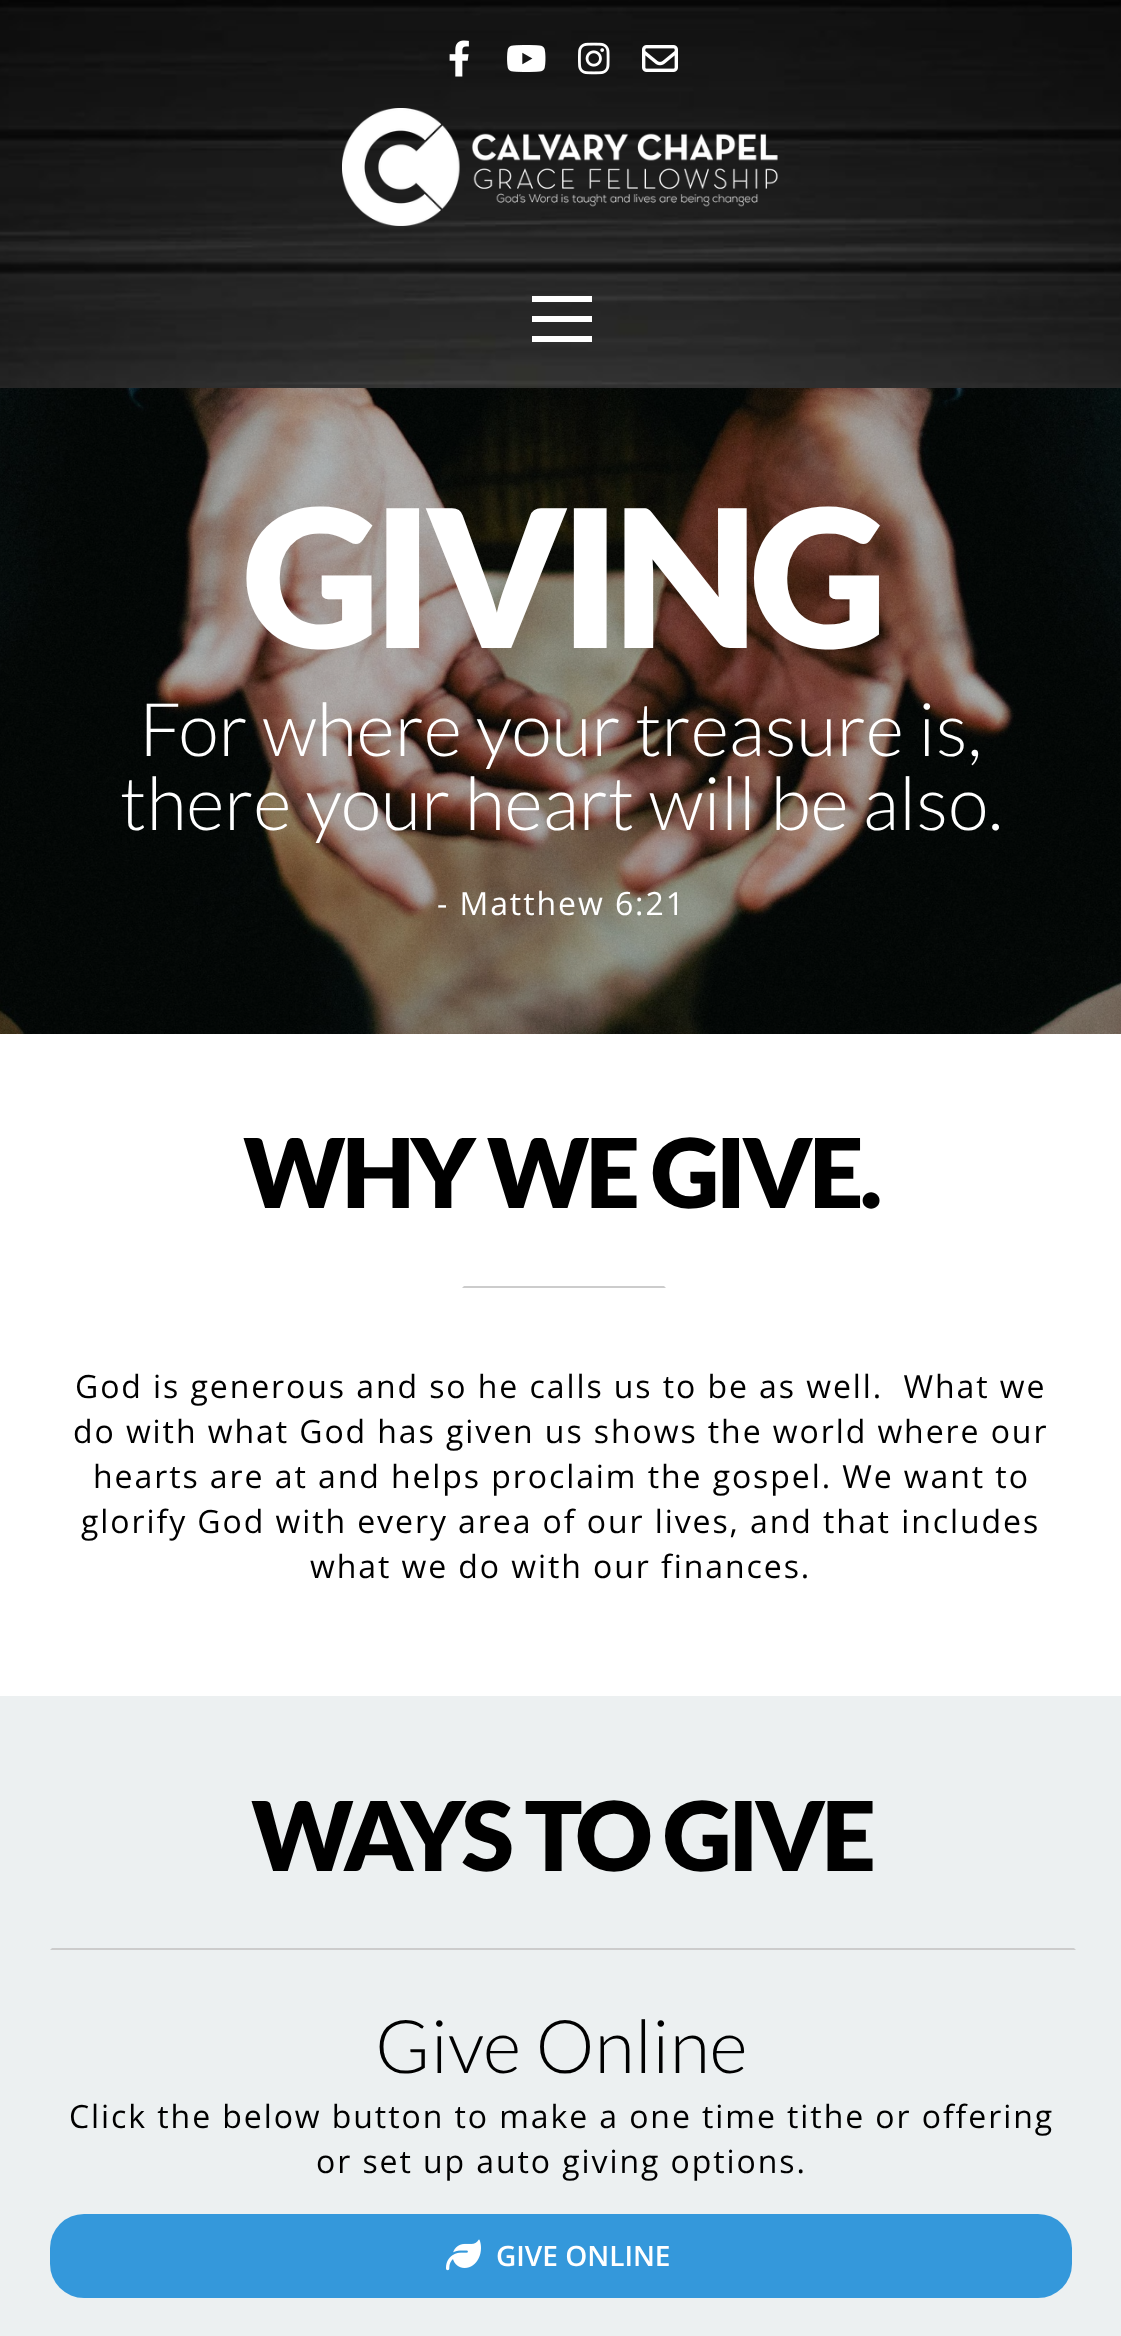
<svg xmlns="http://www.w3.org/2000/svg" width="1121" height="2336">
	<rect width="100%" height="100%" fill="#FFFFFF" />
	<image x="0" y="0" width="1121" height="388" href="assets/img1.png" />
	<image x="449" y="40" width="20" height="37" href="assets/img2.png" />
	<image x="507" y="45" width="39" height="27" href="assets/img3.png" />
	<image x="578" y="42" width="32" height="33" href="assets/img4.png" />
	<image x="642" y="45" width="36" height="27" href="assets/img5.png" />
	<image x="342" y="108" width="436" height="118" href="assets/img6.png" />
	<rect x="532" y="296" width="60" height="6" fill="#FFFFFF" />
	<rect x="532" y="316" width="60" height="6" fill="#FFFFFF" />
	<rect x="532" y="336" width="60" height="6" fill="#FFFFFF" />
	<image x="0" y="388" width="1121" height="646" href="assets/img7.png" />
	<text x="243" y="648" font-family="Lato" font-size="192" font-weight="900" letter-spacing="-7.75" fill="#FFFFFF">GIVING</text>
	<g font-family="Lato" font-size="74" font-weight="300" fill="#FFFFFF">
		<text x="139" y="756">For where your treasure is,</text>
		<text x="120" y="830">there your heart will be also.</text>
	</g>
	<text x="437" y="915" font-family="Open Sans" font-size="32" letter-spacing="1.92" fill="#FFFFFF">- Matthew 6:21</text>
	<text x="243" y="1208" font-family="Lato" font-size="96" font-weight="900" letter-spacing="-3.8" fill="#000000">WHY WE GIVE.</text>
	<path d="M666 1288H462L464 1286H664Z" fill="#CCCCCC" />
	<g font-family="Open Sans" font-size="32" letter-spacing="1.92" fill="#000000">
		<text x="75" y="1398" xml:space="preserve">God is generous and so he calls us to be as well.  What we</text>
		<text x="73" y="1443">do with what God has given us shows the world where our</text>
		<text x="93" y="1488">hearts are at and helps proclaim the gospel. We want to</text>
		<text x="81" y="1533">glorify God with every area of our lives, and that includes</text>
		<text x="310" y="1578">what we do with our finances.</text>
	</g>
	<rect x="0" y="1696" width="1121" height="640" fill="#ECF0F1" />
	<text x="251" y="1871" font-family="Lato" font-size="96" font-weight="900" letter-spacing="-3.8" fill="#000000">WAYS TO GIVE</text>
	<path d="M1076 1950H50L52 1948H1074Z" fill="#CCCCCC" />
	<text x="375" y="2073" font-family="Lato" font-size="74" font-weight="300" fill="#000000">Give Online</text>
	<g font-family="Open Sans" font-size="32" letter-spacing="1.92" fill="#000000">
		<text x="69" y="2128">Click the below button to make a one time tithe or offering</text>
		<text x="316" y="2173">or set up auto giving options.</text>
	</g>
	<rect x="50" y="2214" width="1022" height="84" rx="34" fill="#3498DB" />
	<image x="446" y="2239" width="35" height="32" href="assets/img8.png" />
	<text x="496" y="2266" font-family="Open Sans" font-size="28" font-weight="600" fill="#FFFFFF">GIVE ONLINE</text>
</svg>
